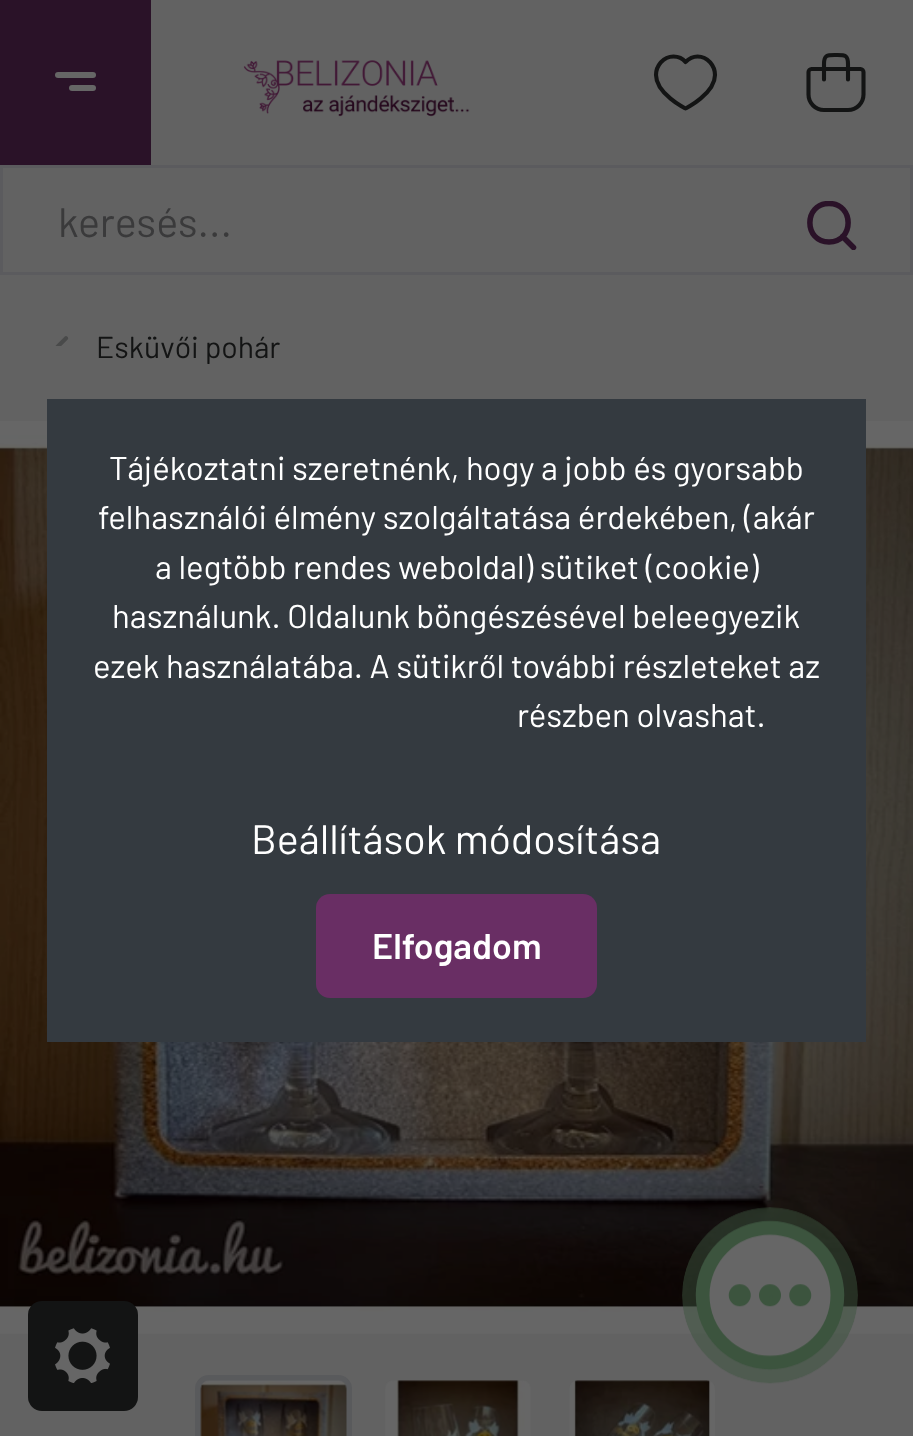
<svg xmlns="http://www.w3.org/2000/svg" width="913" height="1436">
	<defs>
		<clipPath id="clip1"><rect x="806" y="201" width="52" height="49" /></clipPath>
	</defs>
	<rect width="100%" height="100%" fill="#626262" />
	<rect x="0" y="0" width="151" height="165" fill="#2A1228" />
	<rect x="55" y="72" width="41" height="6" rx="3" fill="#666666" />
	<rect x="69" y="85" width="27" height="6" rx="3" fill="#666666" />
	<image x="243" y="60" width="227" height="57" href="assets/img1.png" />
	<path d="M697.5 56.5C708 56.5 715 66 715 75C715 93.5 686 108.5 685.5 108.5C685 108.5 656 93.5 656 75C656 66 663 56.5 673.5 56.5C679.5 56.5 683.5 59.5 685.5 62C688 59.5 692 56.5 697.5 56.5Z" fill="none" stroke="#131414" stroke-width="4.1" stroke-linecap="round" stroke-linejoin="round" />
	<path d="M848 79.5V64C848 54.5 844.5 55 836 55C827.5 55 824 54.5 824 64V79.5M848 110H824C815.5 110 808.5 103 808.5 94.5V72C808.5 70.5 810 69 811.5 69H860.5C862 69 863.5 70.5 863.5 72V94.5C863.5 103 856.5 110 848 110Z" fill="none" stroke="#131414" stroke-width="4.1" stroke-linecap="round" stroke-linejoin="round" />
	<rect x="1.5" y="166.5" width="910" height="107" fill="none" stroke="#5B5B5E" stroke-width="3" />
	<text x="58" y="237" font-family="Barlow" font-size="41.25" fill="#3A3A3B">keresés...</text>
	<g clip-path="url(#clip1)">
		<path d="M853.5 247.5L842.5 236.5M829 242C803.5 242 803.5 203.5 829 203.5C854.5 203.5 854.5 242 829 242Z" fill="none" stroke="#2A1228" stroke-width="5.5" stroke-linecap="round" stroke-linejoin="round" />
	</g>
	<image x="55" y="336" width="14" height="10" href="assets/img2.png" />
	<text x="96" y="358" font-family="Barlow" font-size="30.25" fill="#131414">Esküvői pohár</text>
	<image x="0" y="421" width="913" height="913" href="assets/img3.png" />
	<rect x="198" y="1378" width="151" height="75" rx="11" fill="none" stroke="#595A5C" stroke-width="6" />
	<image x="200" y="1380" width="147" height="56" href="assets/img4.png" />
	<image x="385" y="1380" width="146" height="56" href="assets/img5.png" />
	<image x="569" y="1380" width="146" height="56" href="assets/img6.png" />
	<rect x="47" y="399" width="819" height="643" fill="#343A40" />
	<g font-family="Barlow" font-size="33" fill="#FFFFFF">
		<text x="109" y="480">Tájékoztatni szeretnénk, hogy a jobb és gyorsabb</text>
		<text x="98" y="529">felhasználói élmény szolgáltatása érdekében, (akár</text>
		<text x="155" y="579">a legtöbb rendes weboldal) sütiket (cookie)</text>
		<text x="112" y="628">használunk. Oldalunk böngészésével beleegyezik</text>
		<text x="93" y="678">ezek használatába. A sütikről további részleteket az</text>
		<text x="517" y="727">részben olvashat.</text>
	</g>
	<text x="251" y="854" font-family="Barlow" font-size="41.25" fill="#FFFFFF">Beállítások módosítása</text>
	<rect x="316" y="894" width="281" height="104" rx="14" fill="#692E64" />
	<text x="372" y="959" font-family="Barlow" font-size="35.75" font-weight="600" fill="#FFFFFF">Elfogadom</text>
	<rect x="28" y="1301" width="110" height="110" rx="14" fill="#131414" />
	<image x="55" y="1328" width="55" height="55" href="assets/img7.png" />
	<image x="682" y="1207" width="176" height="177" href="assets/img8.png" />
</svg>
